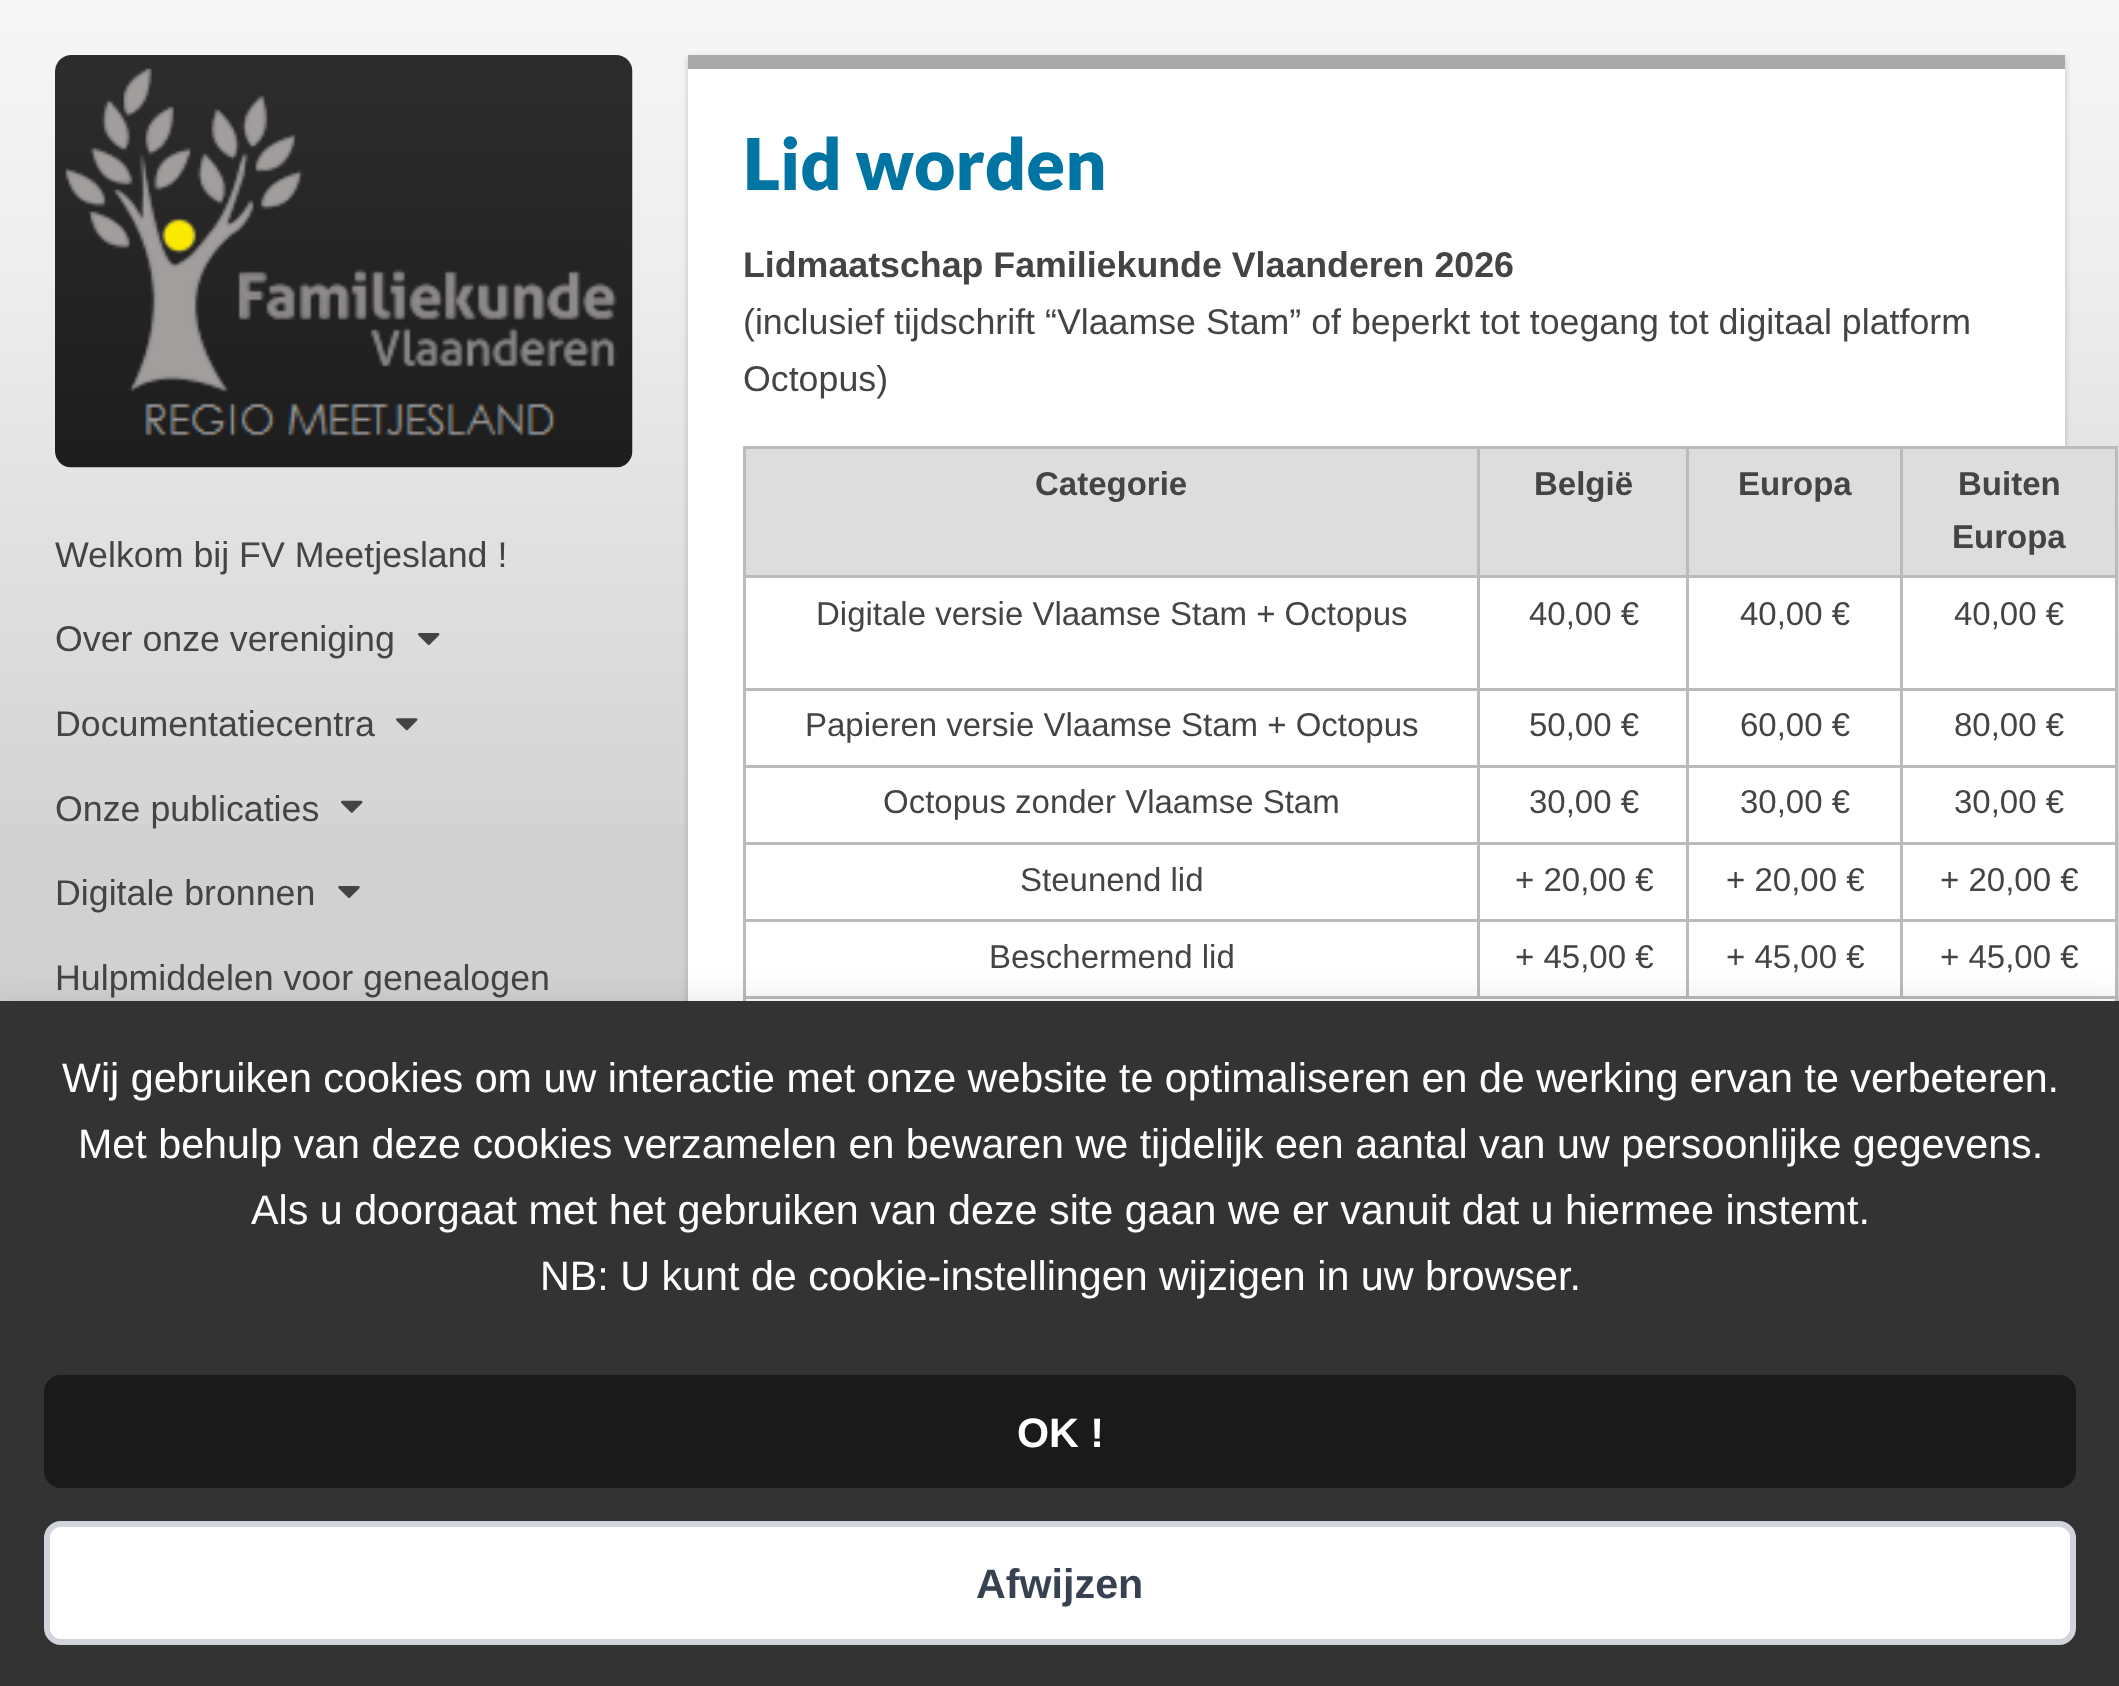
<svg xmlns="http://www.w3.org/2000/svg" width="2119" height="1686">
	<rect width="100%" height="100%" fill="#D1D1D1" />
	<image x="0" y="0" width="2119" height="825" href="assets/img1.png" />
	<image x="55" y="55" width="578" height="413" href="assets/img2.png" />
	<g font-family="Liberation Sans" font-size="35.75" fill="#444444">
		<text x="55" y="567">Welkom bij FV Meetjesland !</text>
		<text x="55" y="651">Over onze vereniging</text>
	</g>
	<image x="418" y="633" width="22" height="12" href="assets/img3.png" />
	<text x="55" y="736" font-family="Liberation Sans" font-size="35.75" fill="#444444">Documentatiecentra</text>
	<image x="396" y="718" width="22" height="13" href="assets/img4.png" />
	<text x="55" y="821" font-family="Liberation Sans" font-size="35.75" fill="#444444">Onze publicaties</text>
	<image x="341" y="800" width="22" height="13" href="assets/img5.png" />
	<text x="55" y="905" font-family="Liberation Sans" font-size="35.75" fill="#444444">Digitale bronnen</text>
	<image x="338" y="886" width="22" height="12" href="assets/img6.png" />
	<text x="55" y="990" font-family="Liberation Sans" font-size="35.75" fill="#444444">Hulpmiddelen voor genealogen</text>
	<rect x="688" y="58" width="1377" height="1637" fill="#000000" fill-opacity="0.2" filter="blur(3px)" />
	<rect x="688" y="69" width="1377" height="932" fill="#FFFFFF" />
	<rect x="688" y="55" width="1377" height="14" fill="#AAAAAA" />
	<text x="743" y="190" font-family="Lato" font-size="71.5" font-weight="900" fill="#0074A2">Lid worden</text>
	<text x="743" y="277" font-family="Liberation Sans" font-size="35.75" font-weight="700" fill="#444444">Lidmaatschap Familiekunde Vlaanderen 2026</text>
	<g font-family="Liberation Sans" font-size="35.75" fill="#444444">
		<text x="743" y="334">(inclusief tijdschrift “Vlaamse Stam” of beperkt tot toegang tot digitaal platform</text>
		<text x="743" y="391">Octopus)</text>
	</g>
	<rect x="2065" y="578" width="50" height="423" fill="#FFFFFF" />
	<rect x="746" y="449" width="731" height="126" fill="#DDDDDD" />
	<rect x="1900" y="446" width="218" height="3" fill="#BBBBBB" />
	<rect x="1900" y="575" width="218" height="3" fill="#BBBBBB" />
	<rect x="1900" y="688" width="218" height="3" fill="#BBBBBB" />
	<rect x="1900" y="765" width="218" height="3" fill="#BBBBBB" />
	<rect x="1900" y="842" width="218" height="3" fill="#BBBBBB" />
	<rect x="1900" y="919" width="218" height="3" fill="#BBBBBB" />
	<rect x="743" y="996" width="1375" height="3" fill="#BBBBBB" />
	<rect x="1900" y="919" width="3" height="79" fill="#BBBBBB" />
	<rect x="1686" y="919" width="217" height="3" fill="#BBBBBB" />
	<rect x="1900" y="842" width="3" height="79" fill="#BBBBBB" />
	<rect x="1686" y="842" width="217" height="3" fill="#BBBBBB" />
	<rect x="1900" y="765" width="3" height="79" fill="#BBBBBB" />
	<rect x="1686" y="765" width="217" height="3" fill="#BBBBBB" />
	<rect x="1900" y="688" width="3" height="79" fill="#BBBBBB" />
	<rect x="1686" y="688" width="217" height="3" fill="#BBBBBB" />
	<rect x="1900" y="575" width="3" height="115" fill="#BBBBBB" />
	<rect x="1686" y="575" width="217" height="3" fill="#BBBBBB" />
	<rect x="1900" y="446" width="3" height="132" fill="#BBBBBB" />
	<rect x="1686" y="446" width="217" height="3" fill="#BBBBBB" />
	<rect x="1686" y="919" width="3" height="79" fill="#BBBBBB" />
	<rect x="1477" y="919" width="212" height="3" fill="#BBBBBB" />
	<rect x="1686" y="842" width="3" height="79" fill="#BBBBBB" />
	<rect x="1477" y="842" width="212" height="3" fill="#BBBBBB" />
	<rect x="1686" y="765" width="3" height="79" fill="#BBBBBB" />
	<rect x="1477" y="765" width="212" height="3" fill="#BBBBBB" />
	<rect x="1686" y="688" width="3" height="79" fill="#BBBBBB" />
	<rect x="1477" y="688" width="212" height="3" fill="#BBBBBB" />
	<rect x="1686" y="575" width="3" height="115" fill="#BBBBBB" />
	<rect x="1477" y="575" width="212" height="3" fill="#BBBBBB" />
	<rect x="1686" y="446" width="3" height="132" fill="#BBBBBB" />
	<rect x="1477" y="446" width="212" height="3" fill="#BBBBBB" />
	<rect x="1477" y="919" width="3" height="79" fill="#BBBBBB" />
	<rect x="743" y="919" width="737" height="3" fill="#BBBBBB" />
	<rect x="1477" y="842" width="3" height="79" fill="#BBBBBB" />
	<rect x="743" y="842" width="737" height="3" fill="#BBBBBB" />
	<rect x="1477" y="765" width="3" height="79" fill="#BBBBBB" />
	<rect x="743" y="765" width="737" height="3" fill="#BBBBBB" />
	<rect x="1477" y="688" width="3" height="79" fill="#BBBBBB" />
	<rect x="743" y="688" width="737" height="3" fill="#BBBBBB" />
	<rect x="1477" y="575" width="3" height="115" fill="#BBBBBB" />
	<rect x="743" y="575" width="737" height="3" fill="#BBBBBB" />
	<rect x="1477" y="446" width="3" height="132" fill="#BBBBBB" />
	<rect x="743" y="446" width="737" height="3" fill="#BBBBBB" />
	<rect x="743" y="996" width="3" height="5" fill="#BBBBBB" />
	<rect x="743" y="919" width="3" height="79" fill="#BBBBBB" />
	<rect x="743" y="842" width="3" height="79" fill="#BBBBBB" />
	<rect x="743" y="765" width="3" height="79" fill="#BBBBBB" />
	<rect x="743" y="688" width="3" height="79" fill="#BBBBBB" />
	<rect x="743" y="575" width="3" height="115" fill="#BBBBBB" />
	<rect x="743" y="446" width="3" height="132" fill="#BBBBBB" />
	<text x="1035" y="495" font-family="Liberation Sans" font-size="33" font-weight="700" fill="#444444">Categorie</text>
	<rect x="1480" y="449" width="206" height="126" fill="#DDDDDD" />
	<text x="1534" y="495" font-family="Liberation Sans" font-size="33" font-weight="700" fill="#444444">België</text>
	<rect x="1689" y="449" width="211" height="126" fill="#DDDDDD" />
	<text x="1738" y="495" font-family="Liberation Sans" font-size="33" font-weight="700" fill="#444444">Europa</text>
	<rect x="1903" y="449" width="212" height="126" fill="#DDDDDD" />
	<rect x="2115" y="996" width="3" height="5" fill="#BBBBBB" />
	<rect x="2115" y="919" width="3" height="79" fill="#BBBBBB" />
	<rect x="2115" y="842" width="3" height="79" fill="#BBBBBB" />
	<rect x="2115" y="765" width="3" height="79" fill="#BBBBBB" />
	<rect x="2115" y="688" width="3" height="79" fill="#BBBBBB" />
	<rect x="2115" y="575" width="3" height="115" fill="#BBBBBB" />
	<rect x="2115" y="446" width="3" height="132" fill="#BBBBBB" />
	<g font-family="Liberation Sans" font-size="33" font-weight="700" fill="#444444">
		<text x="1958" y="495">Buiten</text>
		<text x="1952" y="548">Europa</text>
	</g>
	<g font-family="Liberation Sans" font-size="33" fill="#444444">
		<text x="816" y="625">Digitale versie Vlaamse Stam + Octopus</text>
		<text x="1529" y="625">40,00 €</text>
		<text x="1740" y="625">40,00 €</text>
		<text x="1954" y="625">40,00 €</text>
		<text x="805" y="736">Papieren versie Vlaamse Stam + Octopus</text>
		<text x="1529" y="736">50,00 €</text>
		<text x="1740" y="736">60,00 €</text>
		<text x="1954" y="736">80,00 €</text>
		<text x="883" y="813">Octopus zonder Vlaamse Stam</text>
		<text x="1529" y="813">30,00 €</text>
		<text x="1740" y="813">30,00 €</text>
		<text x="1954" y="813">30,00 €</text>
		<text x="1020" y="891">Steunend lid</text>
		<text x="1515" y="891">+ 20,00 €</text>
		<text x="1726" y="891">+ 20,00 €</text>
		<text x="1940" y="891">+ 20,00 €</text>
		<text x="989" y="968">Beschermend lid</text>
		<text x="1515" y="968">+ 45,00 €</text>
		<text x="1726" y="968">+ 45,00 €</text>
		<text x="1940" y="968">+ 45,00 €</text>
	</g>
	<rect x="0" y="996" width="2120" height="687" fill="#000000" fill-opacity="0.08" filter="blur(14px)" />
	<rect x="0" y="1001" width="2119" height="685" fill="#333333" />
	<g font-family="Liberation Sans" font-size="41.25" fill="#FFFFFF">
		<text x="62" y="1092">Wij gebruiken cookies om uw interactie met onze website te optimaliseren en de werking ervan te verbeteren.</text>
		<text x="78" y="1158">Met behulp van deze cookies verzamelen en bewaren we tijdelijk een aantal van uw persoonlijke gegevens.</text>
		<text x="251" y="1224">Als u doorgaat met het gebruiken van deze site gaan we er vanuit dat u hiermee instemt.</text>
		<text x="540" y="1290">NB: U kunt de cookie-instellingen wijzigen in uw browser.</text>
	</g>
	<rect x="44" y="1375" width="2032" height="113" rx="17" fill="#1A1A1A" />
	<text x="1017" y="1447" font-family="Liberation Sans" font-size="41.25" font-weight="700" fill="#FFFFFF">OK !</text>
	<rect x="47" y="1524" width="2026" height="118" rx="14" fill="#FFFFFF" stroke="#D1D5DB" stroke-width="6" />
	<text x="976" y="1598" font-family="Liberation Sans" font-size="41.25" font-weight="700" fill="#374151">Afwijzen</text>
</svg>
